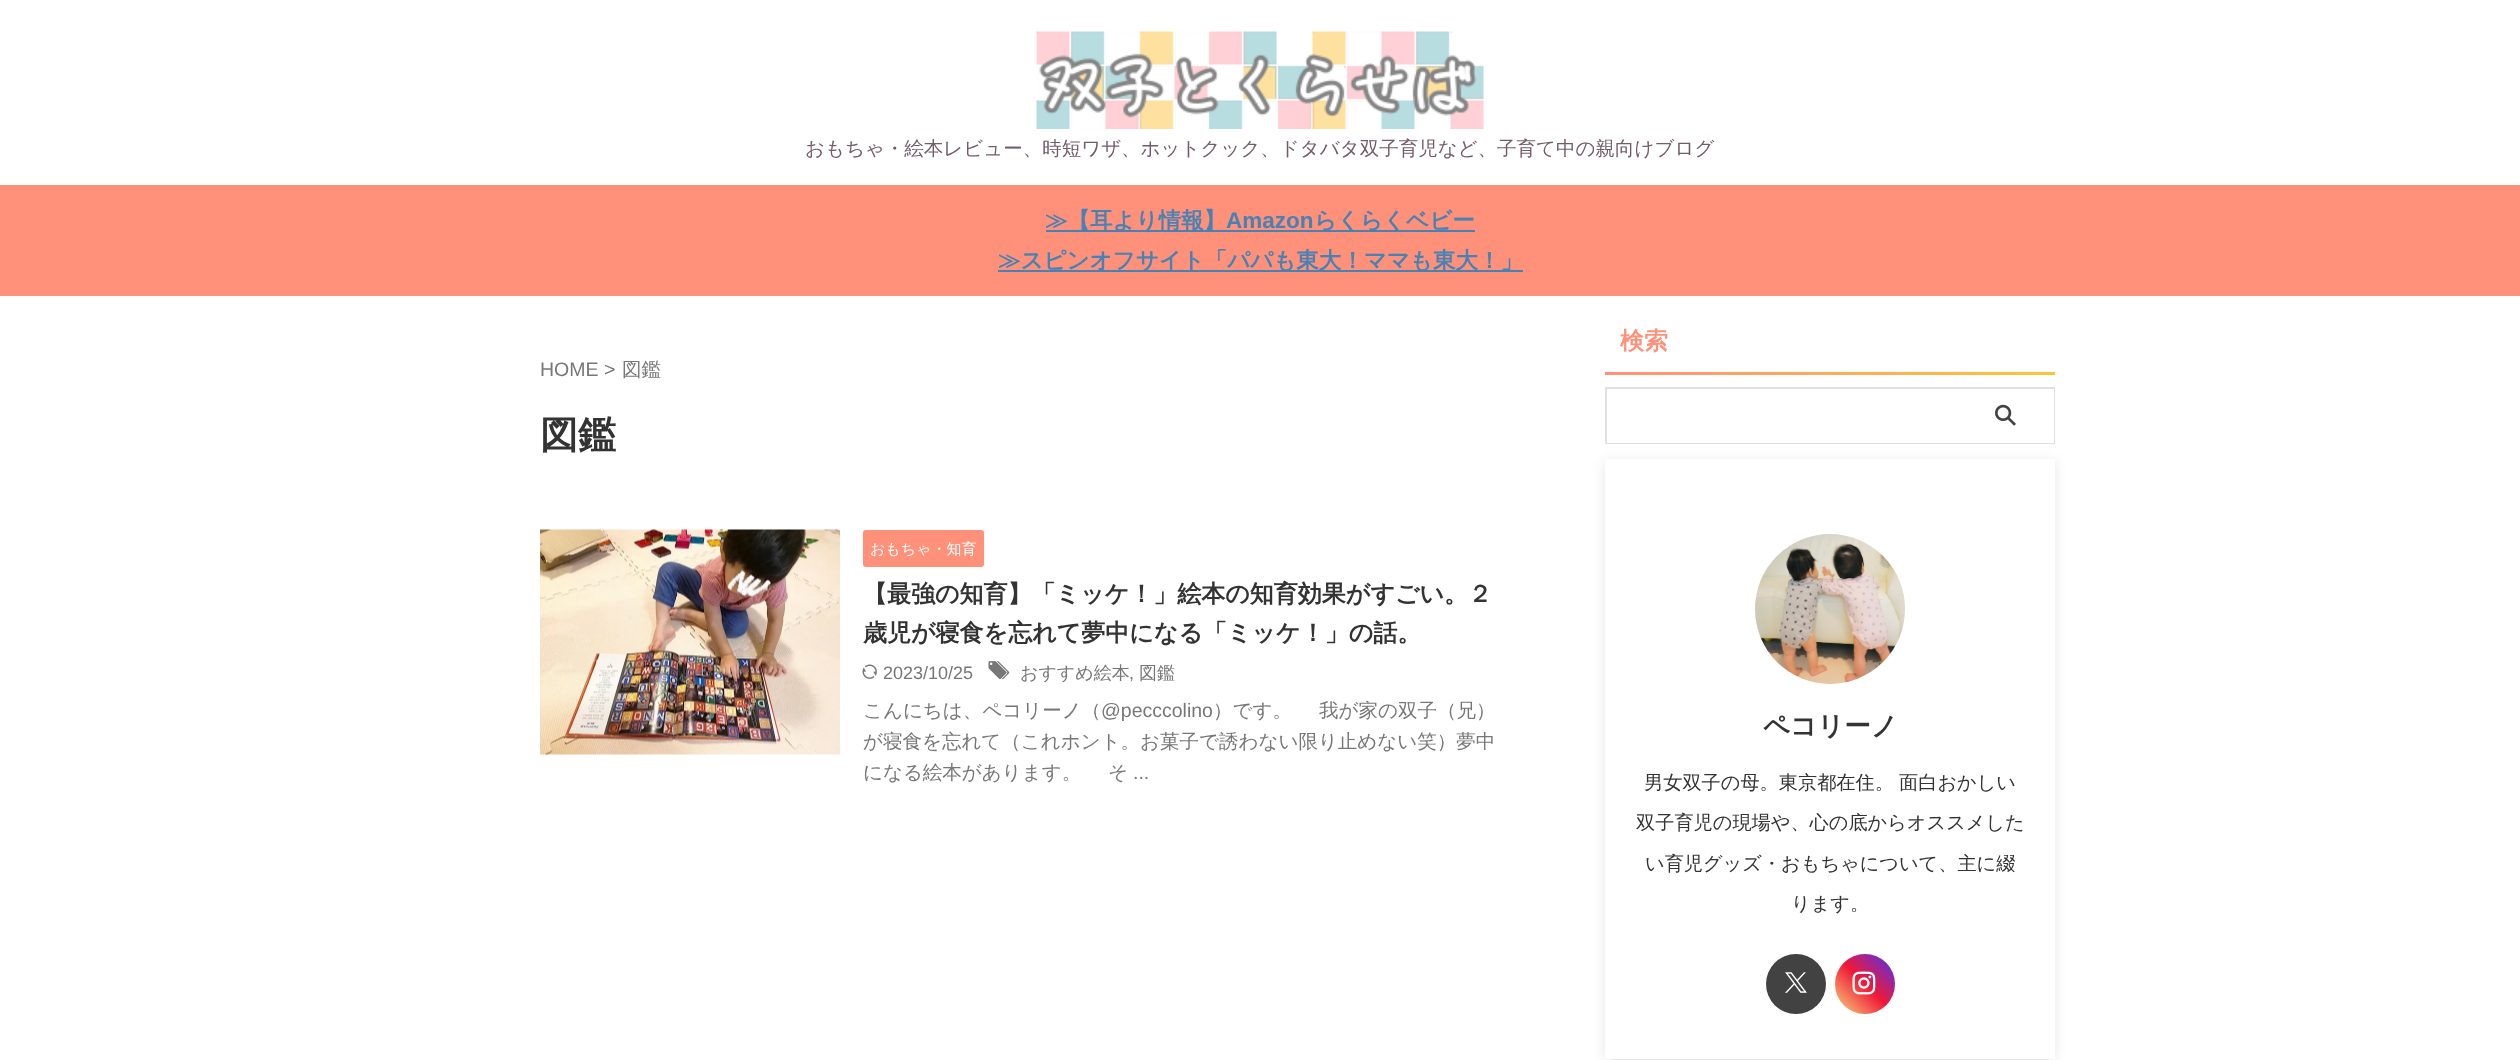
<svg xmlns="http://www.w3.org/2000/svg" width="2520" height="1060">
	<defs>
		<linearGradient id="g1" gradientUnits="userSpaceOnUse" x1="2055" y1="374" x2="1605" y2="374"><stop offset="0" stop-color="#FCC439" /><stop offset="1" stop-color="#FF917A" /></linearGradient>
		<clipPath id="clip1"><path d="M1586 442H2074V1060H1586ZM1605 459H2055V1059H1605Z" clip-rule="evenodd" /></clipPath>
		<clipPath id="clip2"><rect x="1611" y="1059" width="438" height="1" /></clipPath>
		<linearGradient id="g2" gradientUnits="userSpaceOnUse" x1="1895" y1="954" x2="1835" y2="1014"><stop offset="0" stop-color="#4933F7" /><stop offset="0.5" stop-color="#EF1837" /><stop offset="1" stop-color="#FBD980" /></linearGradient>
	</defs>
	<rect width="100%" height="100%" fill="#FFFFFF" />
	<image x="1036" y="31" width="448" height="98" href="assets/img1.png" />
	<text x="805" y="155" font-family="WenQuanYi Zen Hei" font-size="19.5" font-weight="500" fill="#735B69">おもちゃ・絵本レビュー、時短ワザ、ホットクック、ドタバタ双子育児など、子育て中の親向けブログ</text>
	<rect x="0" y="185" width="2520" height="111" fill="#FF917A" />
	<rect x="1046" y="230" width="429" height="2" fill="#4682B4" />
	<text x="1045" y="228" font-family="WenQuanYi Zen Hei" font-size="22.5" font-weight="700" fill="#4682B4">≫【耳より情報】</text>
	<text x="1226" y="228" font-family="Liberation Sans" font-size="22.5" font-weight="700" fill="#4682B4">Amazon</text>
	<text x="1314" y="228" font-family="WenQuanYi Zen Hei" font-size="22.5" font-weight="700" fill="#4682B4">らくらくベビー</text>
	<rect x="998" y="270" width="525" height="2" fill="#4682B4" />
	<text x="998" y="268" font-family="WenQuanYi Zen Hei" font-size="22.5" font-weight="700" fill="#4682B4">≫スピンオフサイト「パパも東大！ママも東大！」</text>
	<text x="540" y="376" font-family="Liberation Sans" font-size="19.5" fill="#777777">HOME &gt;</text>
	<text x="622" y="376" font-family="WenQuanYi Zen Hei" font-size="19.5" font-weight="500" fill="#777777">図鑑</text>
	<text x="540" y="448" font-family="WenQuanYi Zen Hei" font-size="38" font-weight="700" fill="#333333">図鑑</text>
	<image x="540" y="529" width="300" height="226" href="assets/img2.png" />
	<rect x="863" y="530" width="121" height="37" rx="3" fill="#FF917A" />
	<text x="870" y="554" font-family="WenQuanYi Zen Hei" font-size="15" font-weight="500" fill="#FFFFFF">おもちゃ・知育</text>
	<g font-family="WenQuanYi Zen Hei" font-size="24" font-weight="700" fill="#333333">
		<text x="863" y="602">【最強の知育】「ミッケ！」絵本の知育効果がすごい。２</text>
		<text x="863" y="641">歳児が寝食を忘れて夢中になる「ミッケ！」の話。</text>
	</g>
	<image x="862" y="664" width="15" height="15" href="assets/img3.png" />
	<text x="883" y="679" font-family="Liberation Sans" font-size="18" fill="#777777">2023/10/25</text>
	<image x="988" y="661" width="22" height="19" href="assets/img4.png" />
	<text x="1020" y="679" font-family="WenQuanYi Zen Hei" font-size="18" font-weight="500" fill="#777777">おすすめ絵本</text>
	<text x="1129" y="679" font-family="Liberation Sans" font-size="18" fill="#777777">,</text>
	<text x="1139" y="679" font-family="WenQuanYi Zen Hei" font-size="18" font-weight="500" fill="#777777">図鑑</text>
	<text x="863" y="717" font-family="WenQuanYi Zen Hei" font-size="19.5" font-weight="500" fill="#777777">こんにちは、ペコリーノ（</text>
	<text x="1101" y="717" font-family="Liberation Sans" font-size="19.5" fill="#777777">@pecccolino</text>
	<g font-family="WenQuanYi Zen Hei" font-size="19.5" font-weight="500" fill="#777777">
		<text x="1213" y="717">）です。</text>
		<text x="1319" y="717">我が家の双子（兄）</text>
		<text x="863" y="748">が寝食を忘れて（これホント。お菓子で誘わない限り止めない笑）夢中</text>
		<text x="863" y="779">になる絵本があります。</text>
		<text x="1108" y="779">そ</text>
	</g>
	<text x="1133" y="779" font-family="Liberation Sans" font-size="19.5" fill="#777777">...</text>
	<text x="1620" y="349" font-family="WenQuanYi Zen Hei" font-size="24" font-weight="700" fill="#FF917A">検索</text>
	<rect x="1605" y="372" width="450" height="3" fill="url(#g1)" />
	<g clip-path="url(#clip1)">
		<rect x="1605" y="461" width="450" height="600" fill="#000000" fill-opacity="0.1" filter="blur(6px)" />
	</g>
	<rect x="1606" y="388" width="448" height="55" fill="none" stroke="#E0E0E0" stroke-width="2" />
	<rect x="1607" y="442" width="351" height="1" fill="#FFFFFF" />
	<rect x="1958" y="389" width="96" height="54" fill="#FFFFFF" />
	<image x="1995" y="404" width="21" height="22" href="assets/img5.png" />
	<g clip-path="url(#clip2)">
		<rect x="1611" y="471" width="438" height="588" fill="#000000" fill-opacity="0.1" filter="blur(3px)" />
	</g>
	<image x="1755" y="534" width="150" height="150" href="assets/img6.png" />
	<text x="1763" y="735" font-family="WenQuanYi Zen Hei" font-size="26.5" font-weight="700" fill="#333333">ペコリーノ</text>
	<g font-family="WenQuanYi Zen Hei" font-size="19.2" font-weight="500" fill="#333333">
		<text x="1644" y="789">男女双子の母。東京都在住。</text>
		<text x="1899" y="789">面白おかしい</text>
		<text x="1636" y="829">双子育児の現場や、心の底からオススメした</text>
		<text x="1645" y="870">い育児グッズ・おもちゃについて、主に綴</text>
		<text x="1791" y="910">ります。</text>
	</g>
	<circle cx="1796" cy="984" r="30" fill="#424242" />
	<image x="1785" y="972" width="22" height="21" href="assets/img7.png" />
	<circle cx="1865" cy="984" r="30" fill="url(#g2)" />
	<image x="1852" y="971" width="24" height="24" href="assets/img8.png" />
</svg>
